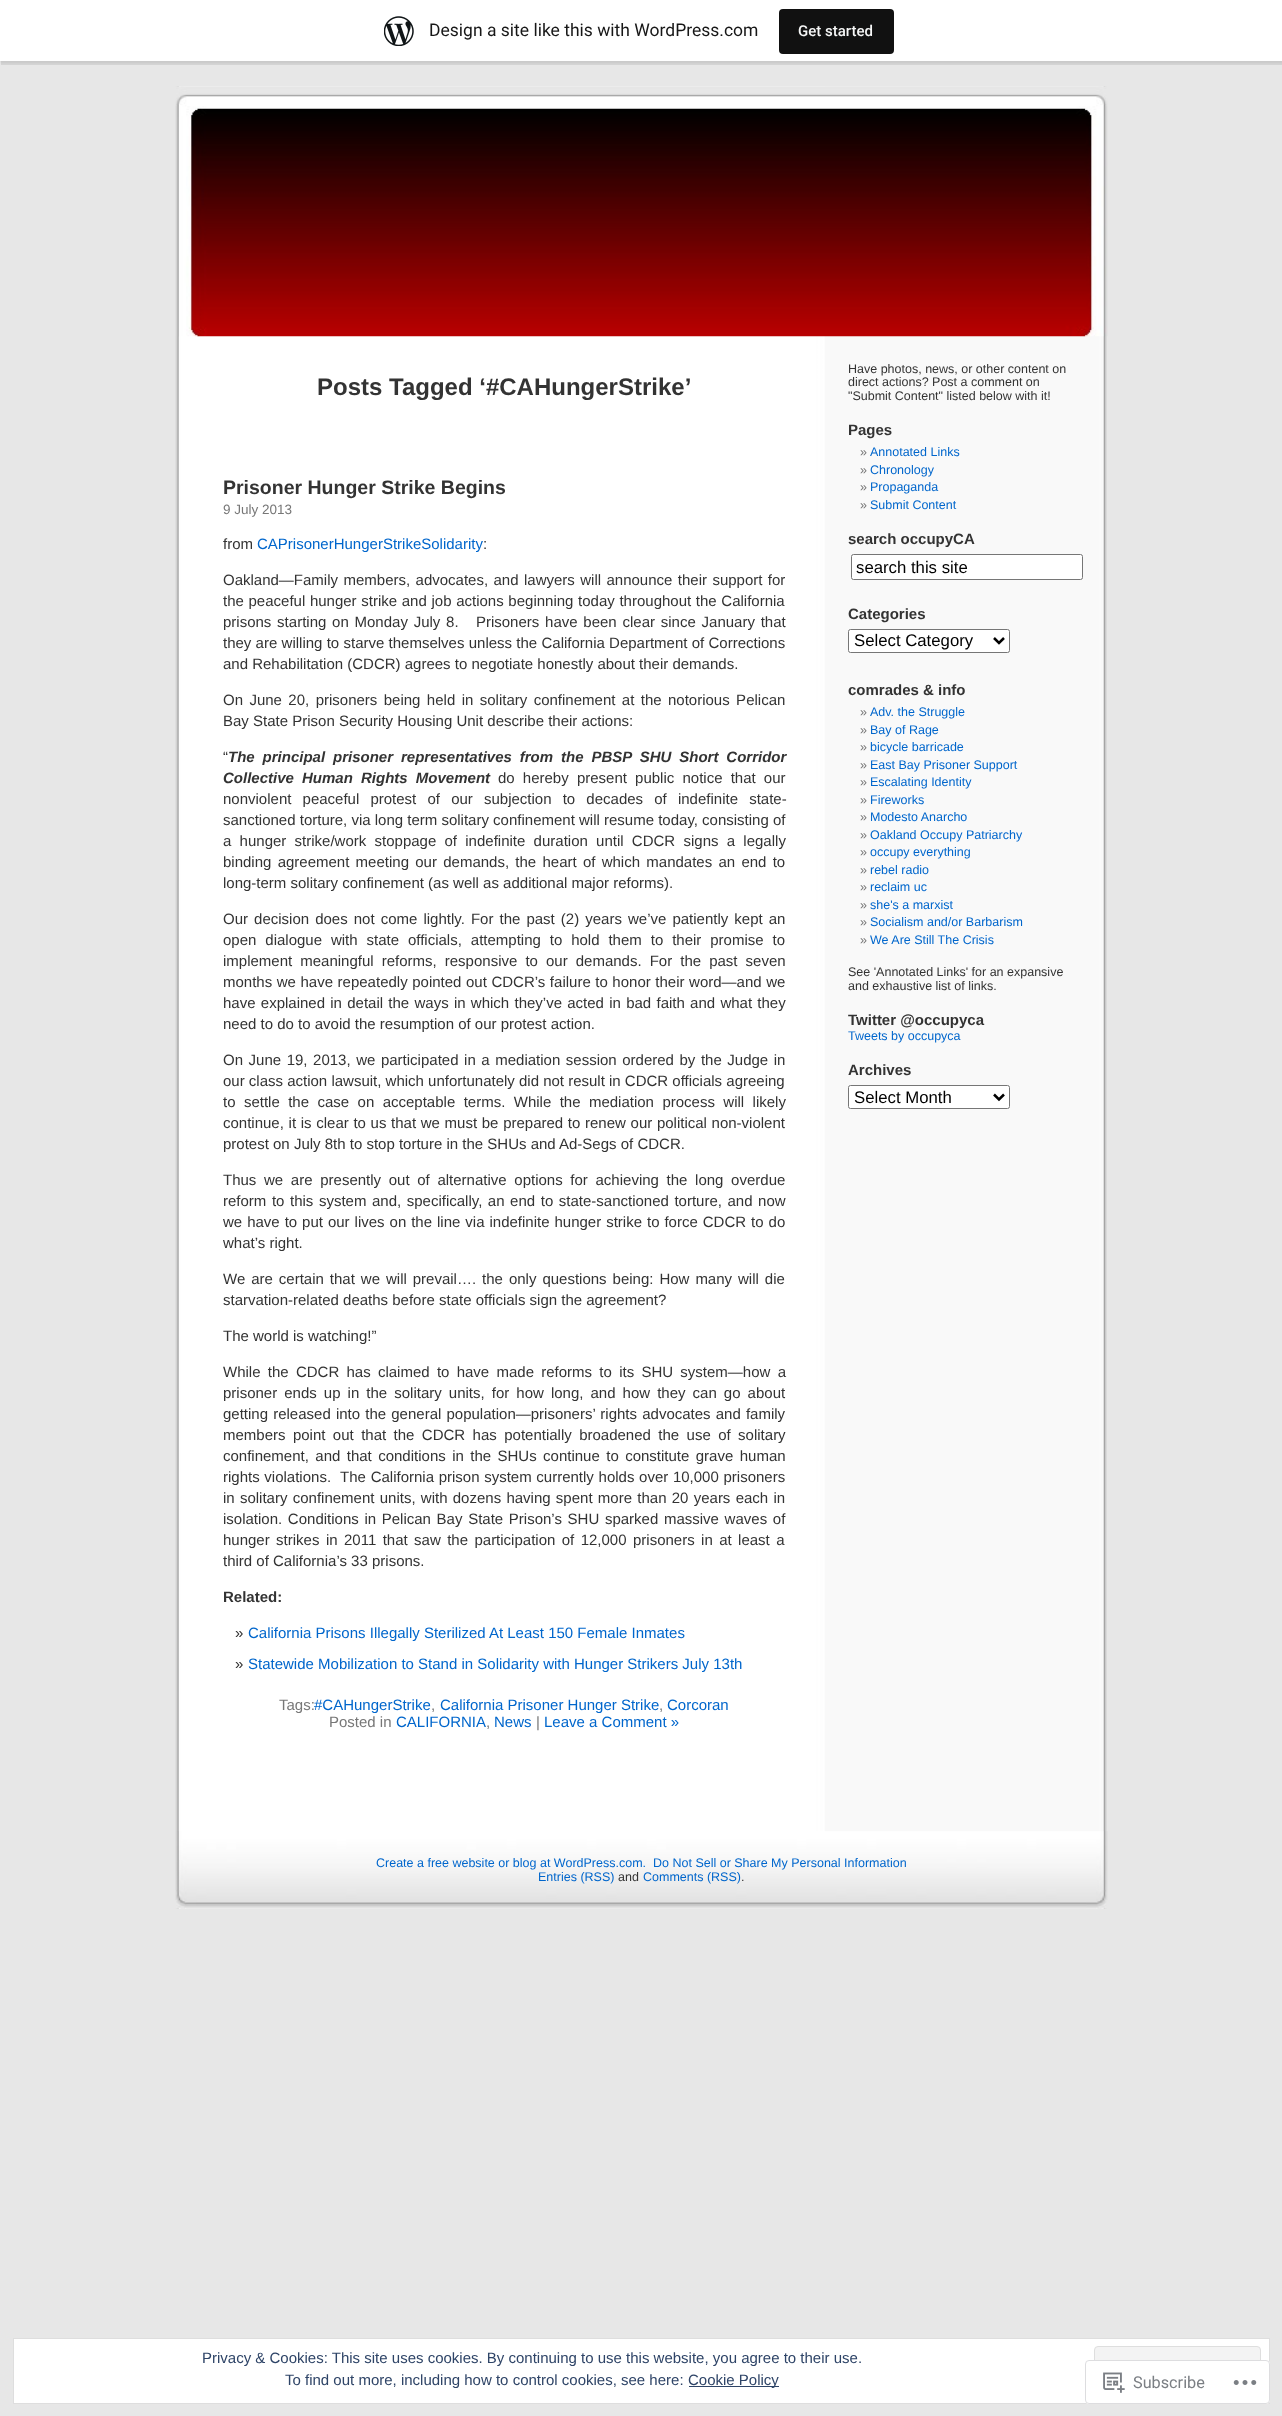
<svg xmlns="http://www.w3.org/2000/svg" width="1282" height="2416">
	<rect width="100%" height="100%" fill="#E7E7E7" />
	<rect x="0" y="1" width="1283" height="62" fill="#000000" fill-opacity="0.05" filter="blur(1px)" />
	<path d="M1 61V65H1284V4H1282V61Z" fill="#000000" fill-opacity="0.08" />
	<rect x="0" y="0" width="1282" height="61" fill="#FFFFFF" />
	<image x="384" y="16" width="30" height="30" href="assets/img1.png" />
	<text x="429" y="36" font-family="Roboto" font-size="17.5" fill="#171717">Design a site like this with WordPress.com</text>
	<rect x="779" y="9" width="115" height="45" rx="4" fill="#111111" />
	<text x="798" y="36" font-family="Roboto" font-size="15" font-weight="500" fill="#F6F7F7">Get started</text>
	<image x="175" y="86" width="932" height="1823" href="assets/img2.png" />
	<image x="175" y="86" width="933" height="251" href="assets/img3.png" />
	<text x="317" y="395" font-family="Liberation Sans" font-size="24" font-weight="700" fill="#333333">Posts Tagged ‘#CAHungerStrike’</text>
	<text x="223" y="494" font-family="Liberation Sans" font-size="19.5" font-weight="700" fill="#333333">Prisoner Hunger Strike Begins</text>
	<text x="223" y="514" font-family="Liberation Sans" font-size="13.5" fill="#777777">9 July 2013</text>
	<text x="223" y="549" font-family="Liberation Sans" font-size="15" fill="#333333">from</text>
	<text x="257" y="549" font-family="Liberation Sans" font-size="15" fill="#0066CC">CAPrisonerHungerStrikeSolidarity</text>
	<g font-family="Liberation Sans" font-size="15" fill="#333333">
		<text x="483" y="549">:</text>
		<text x="223" y="585" word-spacing="1.25">Oakland—Family members, advocates, and lawyers will announce their support for</text>
		<text x="223" y="606" word-spacing="0.5">the peaceful hunger strike and job actions beginning today throughout the California</text>
		<text x="223" y="627" word-spacing="1.6" xml:space="preserve">prisons starting on Monday July 8.   Prisoners have been clear since January that</text>
		<text x="223" y="648" word-spacing="0.1">they are willing to starve themselves unless the California Department of Corrections</text>
		<text x="223" y="669">and Rehabilitation (CDCR) agrees to negotiate honestly about their demands.</text>
		<text x="223" y="705" word-spacing="2.25">On June 20, prisoners being held in solitary confinement at the notorious Pelican</text>
		<text x="223" y="726">Bay State Prison Security Housing Unit describe their actions:</text>
		<text x="223" y="762">“</text>
	</g>
	<g font-family="Liberation Sans" font-size="15" font-weight="700" font-style="italic" fill="#333333">
		<text x="228" y="762" word-spacing="3.75">The principal prisoner representatives from the PBSP SHU Short Corridor</text>
		<text x="223" y="783" word-spacing="4">Collective Human Rights Movement</text>
	</g>
	<g font-family="Liberation Sans" font-size="15" fill="#333333">
		<text x="498" y="783" word-spacing="4">do hereby present public notice that our</text>
		<text x="223" y="804" word-spacing="7">nonviolent peaceful protest of our subjection to decades of indefinite state-</text>
		<text x="223" y="825">sanctioned torture, via long term solitary confinement will resume today, consisting of</text>
		<text x="223" y="846" word-spacing="4.1">a hunger strike/work stoppage of indefinite duration until CDCR signs a legally</text>
		<text x="223" y="867" word-spacing="2.1">binding agreement meeting our demands, the heart of which mandates an end to</text>
		<text x="223" y="888">long-term solitary confinement (as well as additional major reforms).</text>
		<text x="223" y="924" word-spacing="1.9">Our decision does not come lightly. For the past (2) years we’ve patiently kept an</text>
		<text x="223" y="945" word-spacing="4.75">open dialogue with state officials, attempting to hold them to their promise to</text>
		<text x="223" y="966" word-spacing="3.9">implement meaningful reforms, responsive to our demands. For the past seven</text>
		<text x="223" y="987" word-spacing="0.4">months we have repeatedly pointed out CDCR’s failure to honor their word—and we</text>
		<text x="223" y="1008" word-spacing="1.1">have explained in detail the ways in which they’ve acted in bad faith and what they</text>
		<text x="223" y="1029">need to do to avoid the resumption of our protest action.</text>
		<text x="223" y="1065" word-spacing="1.4">On June 19, 2013, we participated in a mediation session ordered by the Judge in</text>
		<text x="223" y="1086">our class action lawsuit, which unfortunately did not result in CDCR officials agreeing</text>
		<text x="223" y="1107" word-spacing="4.25">to settle the case on acceptable terms. While the mediation process will likely</text>
		<text x="223" y="1128" word-spacing="0.5">continue, it is clear to us that we must be prepared to renew our political non-violent</text>
		<text x="223" y="1149">protest on July 8th to stop torture in the SHUs and Ad-Segs of CDCR.</text>
		<text x="223" y="1185" word-spacing="3.5">Thus we are presently out of alternative options for achieving the long overdue</text>
		<text x="223" y="1206" word-spacing="1.4">reform to this system and, specifically, an end to state-sanctioned torture, and now</text>
		<text x="223" y="1227" word-spacing="0.8">we have to put our lives on the line via indefinite hunger strike to force CDCR to do</text>
		<text x="223" y="1248">what’s right.</text>
		<text x="223" y="1284" word-spacing="1.8">We are certain that we will prevail…. the only questions being: How many will die</text>
		<text x="223" y="1305">starvation-related deaths before state officials sign the agreement?</text>
		<text x="223" y="1341">The world is watching!”</text>
		<text x="223" y="1377" word-spacing="3.1">While the CDCR has claimed to have made reforms to its SHU system—how a</text>
		<text x="223" y="1398" word-spacing="2.9">prisoner ends up in the solitary units, for how long, and how they can go about</text>
		<text x="223" y="1419" word-spacing="1">getting released into the general population—prisoners’ rights advocates and family</text>
		<text x="223" y="1440" word-spacing="3.25">members point out that the CDCR has potentially broadened the use of solitary</text>
		<text x="223" y="1461" word-spacing="2.25">confinement, and that conditions in the SHUs continue to constitute grave human</text>
		<text x="223" y="1482" word-spacing="0.5" xml:space="preserve">rights violations.  The California prison system currently holds over 10,000 prisoners</text>
		<text x="223" y="1503" word-spacing="1.1">in solitary confinement units, with dozens having spent more than 20 years each in</text>
		<text x="223" y="1524" word-spacing="1.5">isolation. Conditions in Pelican Bay State Prison’s SHU sparked massive waves of</text>
		<text x="223" y="1545" word-spacing="2.25">hunger strikes in 2011 that saw the participation of 12,000 prisoners in at least a</text>
		<text x="223" y="1566">third of California’s 33 prisons.</text>
	</g>
	<text x="223" y="1602" font-family="Liberation Sans" font-size="15" font-weight="700" fill="#333333">Related:</text>
	<text x="235" y="1638" font-family="Liberation Sans" font-size="15" fill="#333333">»</text>
	<text x="248" y="1638" font-family="Liberation Sans" font-size="15" fill="#0066CC">California Prisons Illegally Sterilized At Least 150 Female Inmates</text>
	<text x="235" y="1669" font-family="Liberation Sans" font-size="15" fill="#333333">»</text>
	<text x="248" y="1669" font-family="Liberation Sans" font-size="15" fill="#0066CC">Statewide Mobilization to Stand in Solidarity with Hunger Strikers July 13th</text>
	<text x="279" y="1710" font-family="Liberation Sans" font-size="15" fill="#777777">Tags:</text>
	<text x="314" y="1710" font-family="Liberation Sans" font-size="15" fill="#0066CC">#CAHungerStrike</text>
	<text x="431" y="1710" font-family="Liberation Sans" font-size="15" fill="#777777">,</text>
	<text x="440" y="1710" font-family="Liberation Sans" font-size="15" fill="#0066CC">California Prisoner Hunger Strike</text>
	<text x="659" y="1710" font-family="Liberation Sans" font-size="15" fill="#777777">,</text>
	<text x="667" y="1710" font-family="Liberation Sans" font-size="15" fill="#0066CC">Corcoran</text>
	<text x="329" y="1727" font-family="Liberation Sans" font-size="15" fill="#777777">Posted in</text>
	<text x="396" y="1727" font-family="Liberation Sans" font-size="15" fill="#0066CC">CALIFORNIA</text>
	<text x="486" y="1727" font-family="Liberation Sans" font-size="15" fill="#777777">,</text>
	<text x="494" y="1727" font-family="Liberation Sans" font-size="15" fill="#0066CC">News</text>
	<text x="536" y="1727" font-family="Liberation Sans" font-size="15" fill="#777777">|</text>
	<text x="544" y="1727" font-family="Liberation Sans" font-size="15" fill="#0066CC">Leave a Comment »</text>
	<g font-family="Liberation Sans" font-size="12.5" fill="#333333">
		<text x="848" y="373">Have photos, news, or other content on</text>
		<text x="848" y="386">direct actions? Post a comment on</text>
		<text x="848" y="400">"Submit Content" listed below with it!</text>
	</g>
	<text x="848" y="435" font-family="Liberation Sans" font-size="15" font-weight="700" fill="#333333">Pages</text>
	<text x="860" y="456" font-family="Liberation Sans" font-size="12.5" fill="#777777">»</text>
	<text x="870" y="456" font-family="Liberation Sans" font-size="12.5" fill="#0066CC">Annotated Links</text>
	<text x="860" y="474" font-family="Liberation Sans" font-size="12.5" fill="#777777">»</text>
	<text x="870" y="474" font-family="Liberation Sans" font-size="12.5" fill="#0066CC">Chronology</text>
	<text x="860" y="491" font-family="Liberation Sans" font-size="12.5" fill="#777777">»</text>
	<text x="870" y="491" font-family="Liberation Sans" font-size="12.5" fill="#0066CC">Propaganda</text>
	<text x="860" y="509" font-family="Liberation Sans" font-size="12.5" fill="#777777">»</text>
	<text x="870" y="509" font-family="Liberation Sans" font-size="12.5" fill="#0066CC">Submit Content</text>
	<text x="848" y="544" font-family="Liberation Sans" font-size="15" font-weight="700" fill="#333333">search occupyCA</text>
	<rect x="851.5" y="554.5" width="231" height="25" rx="2" fill="#FFFFFF" stroke="#767676" />
	<text x="856" y="573" font-family="Liberation Sans" font-size="16.75" fill="#000000">search this site</text>
	<text x="848" y="619" font-family="Liberation Sans" font-size="15" font-weight="700" fill="#333333">Categories</text>
	<rect x="848.5" y="629.5" width="161" height="23" rx="2" fill="#FFFFFF" stroke="#767676" />
	<path d="M994 638L999 643L1004 638" fill="none" stroke="#000000" stroke-width="2.5" />
	<text x="854" y="646" font-family="Liberation Sans" font-size="16.75" fill="#000000">Select Category</text>
	<text x="848" y="695" font-family="Liberation Sans" font-size="15" font-weight="700" fill="#333333">comrades &amp; info</text>
	<text x="860" y="716" font-family="Liberation Sans" font-size="12.5" fill="#777777">»</text>
	<text x="870" y="716" font-family="Liberation Sans" font-size="12.5" fill="#0066CC">Adv. the Struggle</text>
	<text x="860" y="734" font-family="Liberation Sans" font-size="12.5" fill="#777777">»</text>
	<text x="870" y="734" font-family="Liberation Sans" font-size="12.5" fill="#0066CC">Bay of Rage</text>
	<text x="860" y="751" font-family="Liberation Sans" font-size="12.5" fill="#777777">»</text>
	<text x="870" y="751" font-family="Liberation Sans" font-size="12.5" fill="#0066CC">bicycle barricade</text>
	<text x="860" y="769" font-family="Liberation Sans" font-size="12.5" fill="#777777">»</text>
	<text x="870" y="769" font-family="Liberation Sans" font-size="12.5" fill="#0066CC">East Bay Prisoner Support</text>
	<text x="860" y="786" font-family="Liberation Sans" font-size="12.5" fill="#777777">»</text>
	<text x="870" y="786" font-family="Liberation Sans" font-size="12.5" fill="#0066CC">Escalating Identity</text>
	<text x="860" y="804" font-family="Liberation Sans" font-size="12.5" fill="#777777">»</text>
	<text x="870" y="804" font-family="Liberation Sans" font-size="12.5" fill="#0066CC">Fireworks</text>
	<text x="860" y="821" font-family="Liberation Sans" font-size="12.5" fill="#777777">»</text>
	<text x="870" y="821" font-family="Liberation Sans" font-size="12.5" fill="#0066CC">Modesto Anarcho</text>
	<text x="860" y="839" font-family="Liberation Sans" font-size="12.5" fill="#777777">»</text>
	<text x="870" y="839" font-family="Liberation Sans" font-size="12.5" fill="#0066CC">Oakland Occupy Patriarchy</text>
	<text x="860" y="856" font-family="Liberation Sans" font-size="12.5" fill="#777777">»</text>
	<text x="870" y="856" font-family="Liberation Sans" font-size="12.5" fill="#0066CC">occupy everything</text>
	<text x="860" y="874" font-family="Liberation Sans" font-size="12.5" fill="#777777">»</text>
	<text x="870" y="874" font-family="Liberation Sans" font-size="12.5" fill="#0066CC">rebel radio</text>
	<text x="860" y="891" font-family="Liberation Sans" font-size="12.5" fill="#777777">»</text>
	<text x="870" y="891" font-family="Liberation Sans" font-size="12.5" fill="#0066CC">reclaim uc</text>
	<text x="860" y="909" font-family="Liberation Sans" font-size="12.5" fill="#777777">»</text>
	<text x="870" y="909" font-family="Liberation Sans" font-size="12.5" fill="#0066CC">she's a marxist</text>
	<text x="860" y="926" font-family="Liberation Sans" font-size="12.5" fill="#777777">»</text>
	<text x="870" y="926" font-family="Liberation Sans" font-size="12.5" fill="#0066CC">Socialism and/or Barbarism</text>
	<text x="860" y="944" font-family="Liberation Sans" font-size="12.5" fill="#777777">»</text>
	<text x="870" y="944" font-family="Liberation Sans" font-size="12.5" fill="#0066CC">We Are Still The Crisis</text>
	<g font-family="Liberation Sans" font-size="12.5" fill="#333333">
		<text x="848" y="976">See 'Annotated Links' for an expansive</text>
		<text x="848" y="990">and exhaustive list of links.</text>
	</g>
	<text x="848" y="1025" font-family="Liberation Sans" font-size="15" font-weight="700" fill="#333333">Twitter @occupyca</text>
	<text x="848" y="1040" font-family="Liberation Sans" font-size="12.5" fill="#0066CC">Tweets by occupyca</text>
	<text x="848" y="1075" font-family="Liberation Sans" font-size="15" font-weight="700" fill="#333333">Archives</text>
	<rect x="848.5" y="1085.5" width="161" height="23" rx="2" fill="#FFFFFF" stroke="#767676" />
	<path d="M994 1094.5L999 1099.5L1004 1094.5" fill="none" stroke="#000000" stroke-width="2.5" />
	<text x="854" y="1103" font-family="Liberation Sans" font-size="16.75" fill="#000000">Select Month</text>
	<image x="175" y="1831" width="933" height="78" href="assets/img4.png" />
	<g font-family="Liberation Sans" font-size="12.5" fill="#0066CC">
		<text x="376" y="1867">Create a free website or blog at WordPress.com.</text>
		<text x="653" y="1867">Do Not Sell or Share My Personal Information</text>
		<text x="538" y="1881">Entries (RSS)</text>
	</g>
	<text x="618" y="1881" font-family="Liberation Sans" font-size="12.5" fill="#333333">and</text>
	<text x="643" y="1881" font-family="Liberation Sans" font-size="12.5" fill="#0066CC">Comments (RSS)</text>
	<text x="741" y="1881" font-family="Liberation Sans" font-size="12.5" fill="#333333">.</text>
	<rect x="13.5" y="2338.5" width="1256" height="65" fill="#FFFFFF" stroke="#DEDEDE" />
	<text x="202" y="2363" font-family="Liberation Sans" font-size="15" fill="#2E4467">Privacy &amp; Cookies: This site uses cookies. By continuing to use this website, you agree to their use.</text>
	<rect x="1094.5" y="2346.5" width="166" height="48" rx="3.5" fill="#F3F3F3" stroke="#DEDEDE" />
	<text x="285" y="2385" font-family="Liberation Sans" font-size="15" fill="#2E4467">To find out more, including how to control cookies, see here:</text>
	<rect x="689" y="2386" width="90" height="1" fill="#2E4467" />
	<text x="688" y="2385" font-family="Liberation Sans" font-size="15" fill="#2E4467">Cookie Policy</text>
	<rect x="1085" y="2360" width="185" height="44" rx="4" fill="#FFFFFF" fill-opacity="0.98" />
	<rect x="1085.5" y="2360.5" width="184" height="43" rx="3.5" fill="none" stroke="#DCDCDE" stroke-opacity="0.98" />
	<image x="1103" y="2372" width="22" height="21" href="assets/img5.png" />
	<text x="1133" y="2388" font-family="Roboto" font-size="16.25" fill="#7B7F84">Subscribe</text>
	<image x="1233" y="2380" width="24" height="5" href="assets/img6.png" />
</svg>
